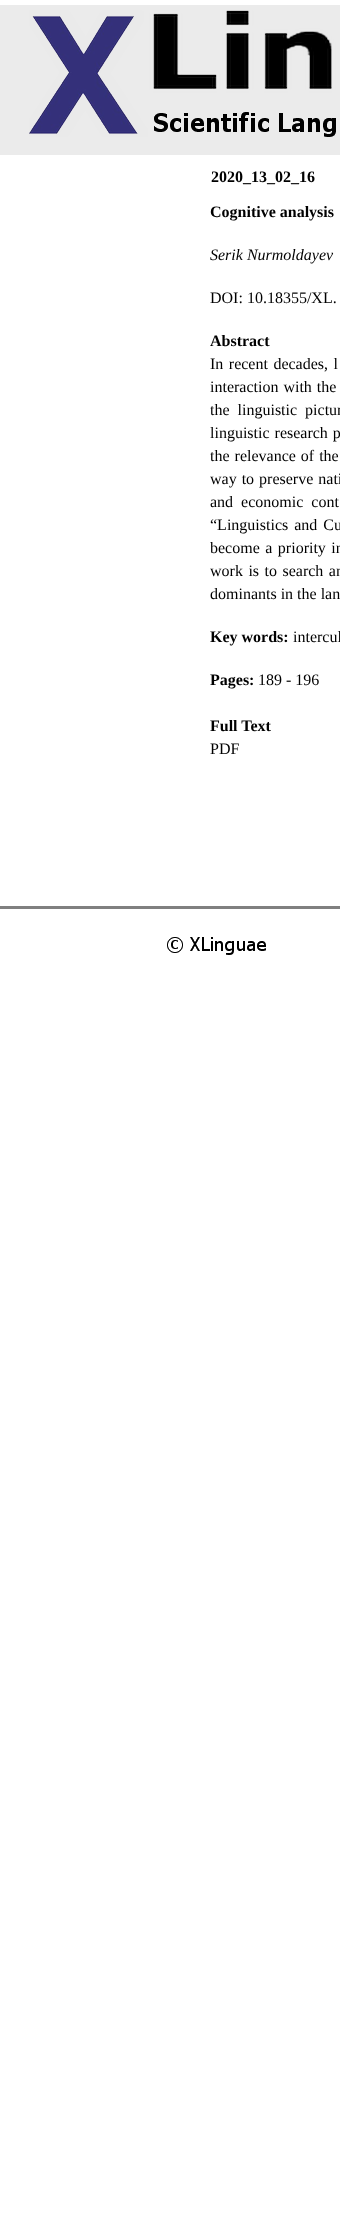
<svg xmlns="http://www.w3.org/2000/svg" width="340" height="2240">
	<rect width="100%" height="100%" fill="#FFFFFF" />
	<rect x="0" y="5" width="340" height="150" fill="#EBEBEB" />
	<image x="29" y="10" width="307" height="127" href="assets/img1.png" />
	<g font-family="Liberation Serif" font-size="16" font-weight="700" fill="#000000">
		<text x="211" y="182">2020_13_02_16</text>
		<text x="210" y="217">Cognitive analysis</text>
	</g>
	<text x="210" y="260" font-family="Liberation Serif" font-size="16" font-style="italic" fill="#000000">Serik Nurmoldayev</text>
	<text x="210" y="303" font-family="Liberation Serif" font-size="16" fill="#000000">DOI: 10.18355/XL.</text>
	<text x="210" y="346" font-family="Liberation Serif" font-size="16" font-weight="700" fill="#000000">Abstract</text>
	<g font-family="Liberation Serif" font-size="16" fill="#000000">
		<text x="210" y="369" word-spacing="1.5">In recent decades, l</text>
		<text x="210" y="392" word-spacing="1">interaction with the</text>
		<text x="210" y="415" word-spacing="4">the linguistic pictur</text>
		<text x="210" y="438" word-spacing="1">linguistic research p</text>
		<text x="210" y="461" word-spacing="1">the relevance of the</text>
		<text x="210" y="484" word-spacing="1">way to preserve nati</text>
		<text x="210" y="507" word-spacing="4">and economic cont</text>
		<text x="210" y="530" word-spacing="2">“Linguistics and Cu</text>
		<text x="210" y="553" word-spacing="1.5">become a priority in</text>
		<text x="210" y="576" word-spacing="1.5">work is to search an</text>
		<text x="210" y="599">dominants in the lan</text>
	</g>
	<text x="210" y="642" font-family="Liberation Serif" font-size="16" font-weight="700" fill="#000000">Key words:</text>
	<text x="293" y="642" font-family="Liberation Serif" font-size="16" fill="#000000">intercul</text>
	<text x="210" y="685" font-family="Liberation Serif" font-size="16" font-weight="700" fill="#000000">Pages:</text>
	<text x="258" y="685" font-family="Liberation Serif" font-size="16" fill="#000000">189 - 196</text>
	<text x="210" y="731" font-family="Liberation Serif" font-size="16" font-weight="700" fill="#000000">Full Text</text>
	<text x="210" y="754" font-family="Liberation Serif" font-size="16" fill="#000000">PDF</text>
	<image x="0" y="906" width="340" height="49" href="assets/img2.png" />
</svg>
